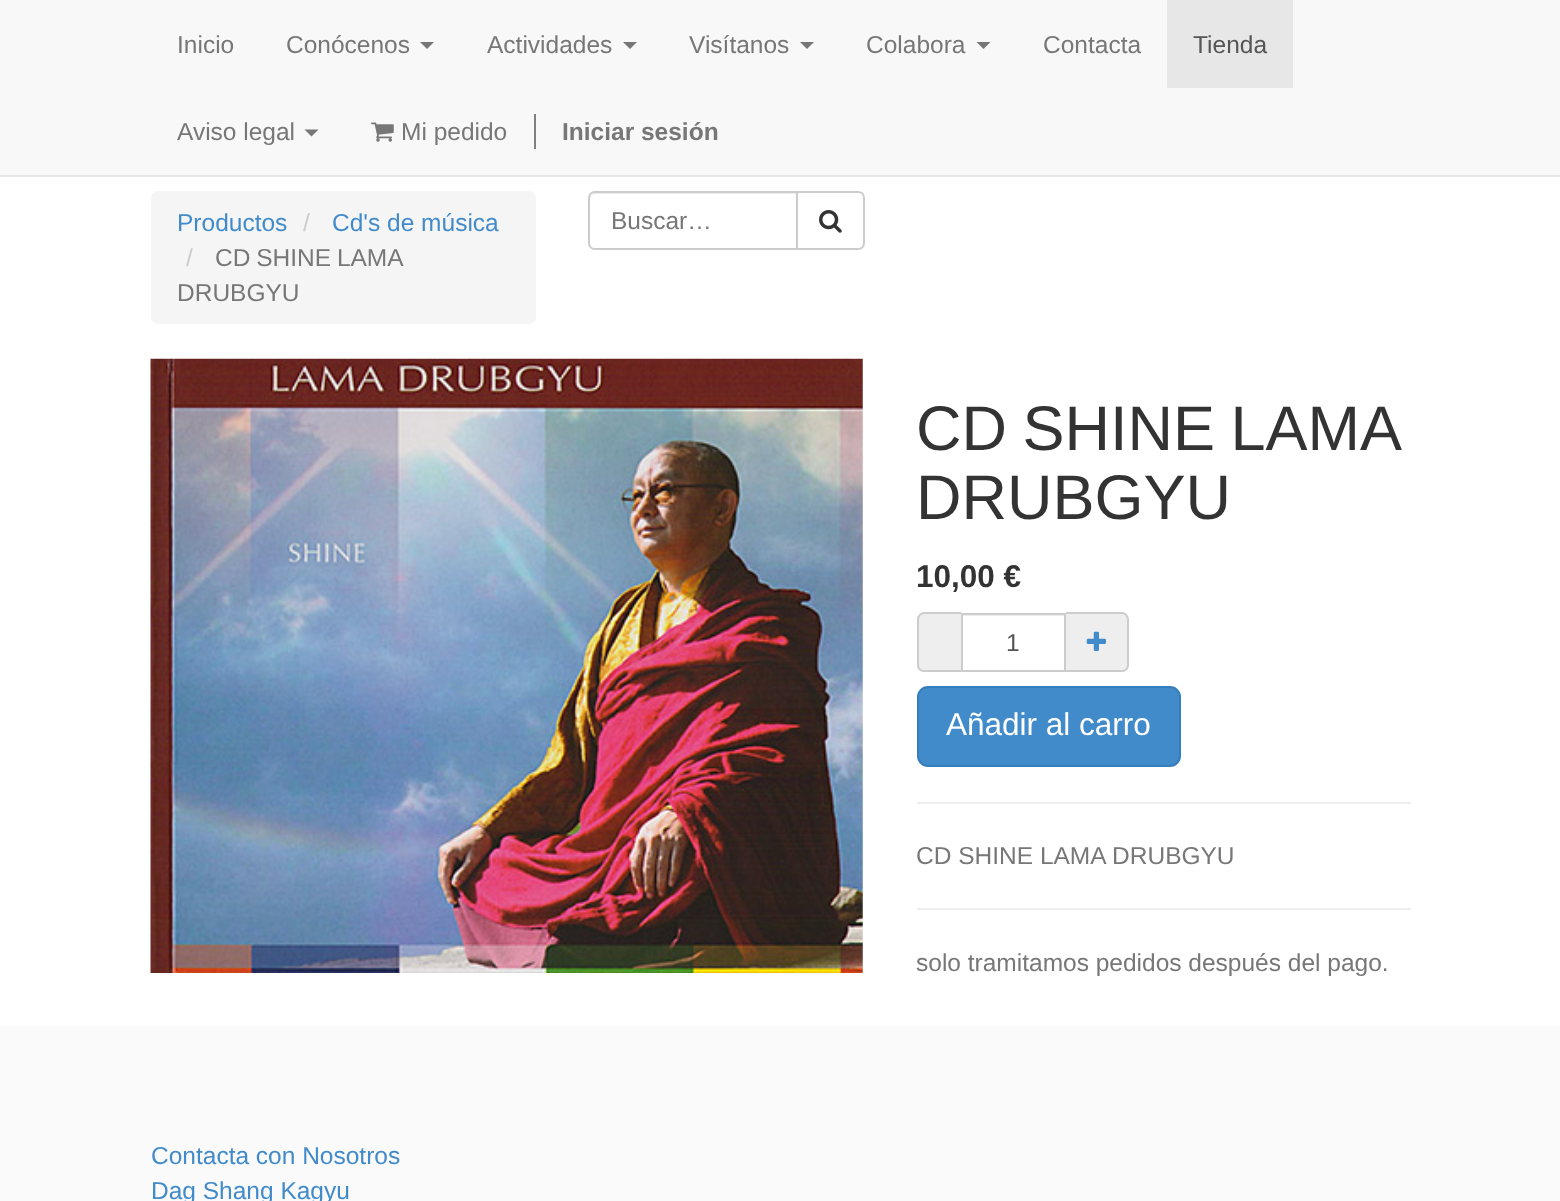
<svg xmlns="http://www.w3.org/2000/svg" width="1560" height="1201">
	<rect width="100%" height="100%" fill="#FFFFFF" />
	<rect x="0" y="0" width="1560" height="175" fill="#F8F8F8" />
	<rect x="0" y="175" width="1560" height="2" fill="#E7E7E7" />
	<g font-family="Liberation Sans" font-size="24.5" fill="#777777">
		<text x="177" y="53">Inicio</text>
		<text x="286" y="53">Conócenos</text>
	</g>
	<path d="M420 42H434L427 49Z" fill="#777777" />
	<text x="487" y="53" font-family="Liberation Sans" font-size="24.5" fill="#777777">Actividades</text>
	<path d="M623 42H637L630 49Z" fill="#777777" />
	<text x="689" y="53" font-family="Liberation Sans" font-size="24.5" fill="#777777">Visítanos</text>
	<path d="M800 42H814L807 49Z" fill="#777777" />
	<text x="866" y="53" font-family="Liberation Sans" font-size="24.5" fill="#777777">Colabora</text>
	<path d="M976.5 42H990.5L983.5 49Z" fill="#777777" />
	<text x="1043" y="53" font-family="Liberation Sans" font-size="24.5" fill="#777777">Contacta</text>
	<rect x="1167" y="0" width="126" height="88" fill="#E7E7E7" />
	<text x="1193" y="53" font-family="Liberation Sans" font-size="24.5" fill="#555555">Tienda</text>
	<text x="177" y="140" font-family="Liberation Sans" font-size="24.5" fill="#777777">Aviso legal</text>
	<path d="M304.5 129.5H318.5L311.5 136.5Z" fill="#777777" />
	<image x="371" y="122" width="23" height="20" href="assets/img1.png" />
	<text x="401" y="140" font-family="Liberation Sans" font-size="24.5" fill="#777777">Mi pedido</text>
	<rect x="534" y="114" width="2" height="35" fill="#808080" />
	<text x="562" y="140" font-family="Liberation Sans" font-size="24.5" font-weight="700" fill="#777777">Iniciar sesión</text>
	<rect x="151" y="191" width="385" height="133" rx="7" fill="#F5F5F5" />
	<text x="177" y="231" font-family="Liberation Sans" font-size="24.5" fill="#428BCA">Productos</text>
	<text x="303" y="231" font-family="Liberation Sans" font-size="24.5" fill="#CCCCCC">/</text>
	<text x="332" y="231" font-family="Liberation Sans" font-size="24.5" fill="#428BCA">Cd's de música</text>
	<text x="186" y="266" font-family="Liberation Sans" font-size="24.5" fill="#CCCCCC">/</text>
	<g font-family="Liberation Sans" font-size="24.5" fill="#777777">
		<text x="215" y="266" word-spacing="-1">CD SHINE LAMA</text>
		<text x="177" y="301">DRUBGYU</text>
	</g>
	<path d="M797 192H858C861.5 192 864 194.5 864 198V243C864 246.5 861.5 249 858 249H797Z" fill="none" stroke="#CCCCCC" stroke-width="2" />
	<path d="M595 191H798V250H595C591 250 588 247 588 243V198C588 194 591 191 595 191Z" fill="#FFFFFF" />
	<path d="M595 194H796V193H595C592 193 590 195 590 198V200C590 197 592 194 595 194Z" fill="#ECECEC" />
	<path d="M595 192H797V249H595C591.5 249 589 246.5 589 243V198C589 194.5 591.5 192 595 192Z" fill="none" stroke="#CCCCCC" stroke-width="2" />
	<text x="611" y="229" font-family="Liberation Sans" font-size="24.5" fill="#777777">Buscar…</text>
	<image x="819" y="210" width="23" height="23" href="assets/img2.png" />
	<image x="150" y="358" width="713" height="615" href="assets/img3.png" />
	<g font-family="Liberation Sans" font-size="63" fill="#333333">
		<text x="916" y="450" word-spacing="-2">CD SHINE LAMA</text>
		<text x="916" y="519">DRUBGYU</text>
	</g>
	<text x="916" y="587" font-family="Liberation Sans" font-size="31.5" font-weight="700" fill="#333333">10,00 €</text>
	<path d="M924 613H961V672H924C920 672 917 669 917 665V620C917 616 920 613 924 613Z" fill="#EEEEEE" />
	<path d="M924 612H961V672H924C920 672 917 669 917 665V620C917 616 920 612 924 612ZM924 614H961V670H924C921 670 919 668 919 665V620C919 617 921 614 924 614Z" fill="#CCCCCC" fill-rule="evenodd" />
	<rect x="963" y="615" width="101" height="1" fill="#ECECEC" />
	<rect x="962" y="614" width="103" height="57" fill="none" stroke="#CCCCCC" stroke-width="2" />
	<text x="1006" y="651" font-family="Liberation Sans" font-size="24.5" fill="#555555">1</text>
	<path d="M1066 613H1122C1126 613 1129 616 1129 620V665C1129 669 1126 672 1122 672H1066Z" fill="#EEEEEE" />
	<path d="M1066 612H1122C1126 612 1129 616 1129 620V665C1129 669 1126 672 1122 672H1066ZM1066 614H1122C1125 614 1127 617 1127 620V665C1127 668 1125 670 1122 670H1066Z" fill="#CCCCCC" fill-rule="evenodd" />
	<image x="1086" y="631" width="20" height="20" href="assets/img4.png" />
	<rect x="918" y="687" width="262" height="79" rx="10" fill="#428BCA" stroke="#357EBD" stroke-width="2" />
	<text x="946" y="735" font-family="Liberation Sans" font-size="31.5" fill="#FFFFFF">Añadir al carro</text>
	<rect x="917" y="802" width="494" height="2" fill="#EEEEEE" />
	<text x="916" y="864" font-family="Liberation Sans" font-size="24.5" fill="#777777">CD SHINE LAMA DRUBGYU</text>
	<rect x="917" y="908" width="494" height="2" fill="#EEEEEE" />
	<text x="916" y="971" font-family="Liberation Sans" font-size="24.5" fill="#777777">solo tramitamos pedidos después del pago.</text>
	<rect x="0" y="1026" width="1560" height="175" fill="#FAFAFA" />
	<g font-family="Liberation Sans" font-size="24.5" fill="#428BCA">
		<text x="151" y="1164">Contacta con Nosotros</text>
		<text x="151" y="1199">Dag Shang Kagyu</text>
	</g>
</svg>
